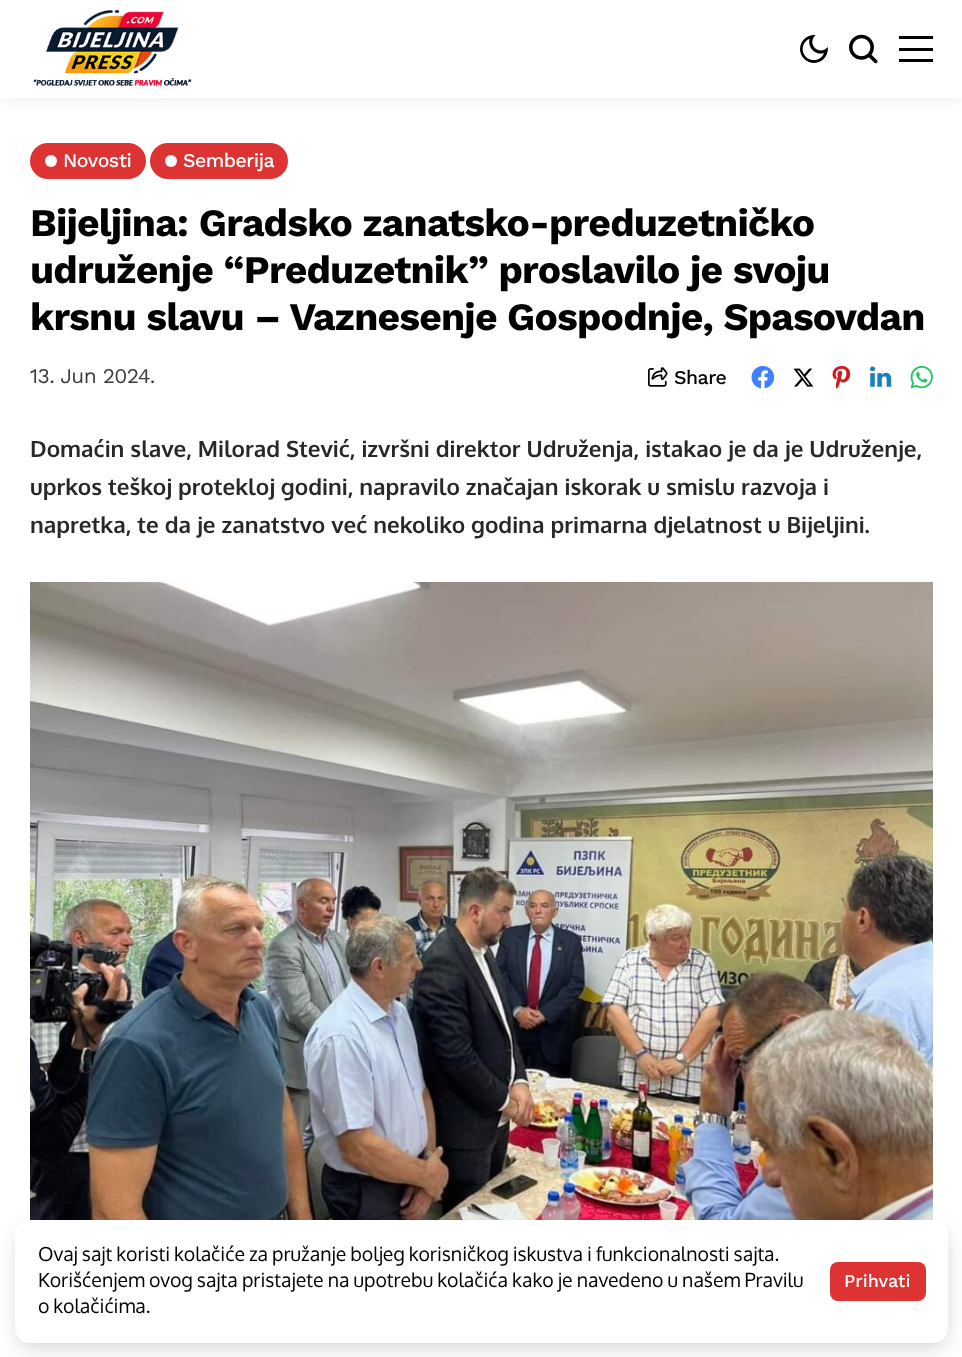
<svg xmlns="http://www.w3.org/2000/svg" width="962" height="1357">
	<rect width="100%" height="100%" fill="#FFFFFF" />
	<rect x="0" y="3" width="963" height="98" fill="#000000" fill-opacity="0.06" filter="blur(7px)" />
	<rect x="0" y="0" width="962" height="98" fill="#FFFFFF" />
	<image x="33" y="10" width="159" height="76" href="assets/img1.png" />
	<image x="800" y="35" width="28" height="28" href="assets/img2.png" />
	<image x="849" y="34" width="29" height="30" href="assets/img3.png" />
	<rect x="899" y="36" width="34" height="3" fill="#000000" />
	<rect x="899" y="48" width="34" height="3" fill="#000000" />
	<rect x="899" y="59" width="34" height="3" fill="#000000" />
	<rect x="30" y="143" width="116" height="36" rx="18" fill="#DD3333" />
	<circle cx="51" cy="161" r="6" fill="#FFFFFF" />
	<text x="63" y="167" font-family="Work Sans" font-size="19.5" font-weight="500" letter-spacing="-0.5" fill="#FFFFFF">Novosti</text>
	<rect x="150" y="143" width="138" height="36" rx="18" fill="#DD3333" />
	<circle cx="171" cy="161" r="6" fill="#FFFFFF" />
	<text x="183" y="167" font-family="Work Sans" font-size="19.5" font-weight="500" letter-spacing="-0.5" fill="#FFFFFF">Semberija</text>
	<g font-family="Work Sans" font-size="39" font-weight="700" letter-spacing="-0.8" fill="#000000">
		<text x="30" y="236">Bijeljina: Gradsko zanatsko-preduzetničko</text>
		<text x="30" y="283">udruženje “Preduzetnik” proslavilo je svoju</text>
		<text x="30" y="330">krsnu slavu – Vaznesenje Gospodnje, Spasovdan</text>
	</g>
	<text x="30" y="383" font-family="Work Sans" font-size="21" letter-spacing="-0.6" fill="#3B3B3B">13. Jun 2024.</text>
	<image x="648" y="367" width="20" height="20" href="assets/img4.png" />
	<text x="674" y="384" font-family="Work Sans" font-size="19.5" font-weight="500" letter-spacing="-0.5" fill="#000000">Share</text>
	<image x="751" y="365" width="24" height="24" href="assets/img5.png" />
	<image x="793" y="368" width="21" height="19" href="assets/img6.png" />
	<image x="832" y="365" width="19" height="24" href="assets/img7.png" />
	<image x="870" y="366" width="22" height="21" href="assets/img8.png" />
	<image x="910" y="365" width="23" height="24" href="assets/img9.png" />
	<g font-family="Oxygen" font-size="22.5" font-weight="700" fill="#282828">
		<text x="30" y="457">Domaćin slave, Milorad Stević, izvršni direktor Udruženja, istakao je da je Udruženje,</text>
		<text x="30" y="495">uprkos teškoj protekloj godini, napravilo značajan iskorak u smislu razvoja i</text>
		<text x="30" y="533">napretka, te da je zanatstvo već nekoliko godina primarna djelatnost u Bijeljini.</text>
	</g>
	<image x="30" y="582" width="903" height="638" href="assets/img10.png" />
	<rect x="20" y="1232" width="924" height="114" rx="11" fill="#000000" fill-opacity="0.2" filter="blur(11px)" />
	<rect x="15" y="1220" width="933" height="123" rx="15" fill="#FFFFFF" />
	<g font-family="Oxygen" font-size="19.5" fill="#000000">
		<text x="38" y="1261" word-spacing="-0.9">Ovaj sajt koristi kolačiće za pružanje boljeg korisničkog iskustva i funkcionalnosti sajta.</text>
		<text x="38" y="1287" word-spacing="-0.75">Korišćenjem ovog sajta pristajete na upotrebu kolačića kako je navedeno u našem Pravilu</text>
		<text x="38" y="1313" word-spacing="-1">o kolačićima.</text>
	</g>
	<rect x="830" y="1262" width="96" height="39" rx="8" fill="#DD3333" />
	<text x="844" y="1287" font-family="Work Sans" font-size="18" font-weight="500" fill="#FFFFFF">Prihvati</text>
</svg>
